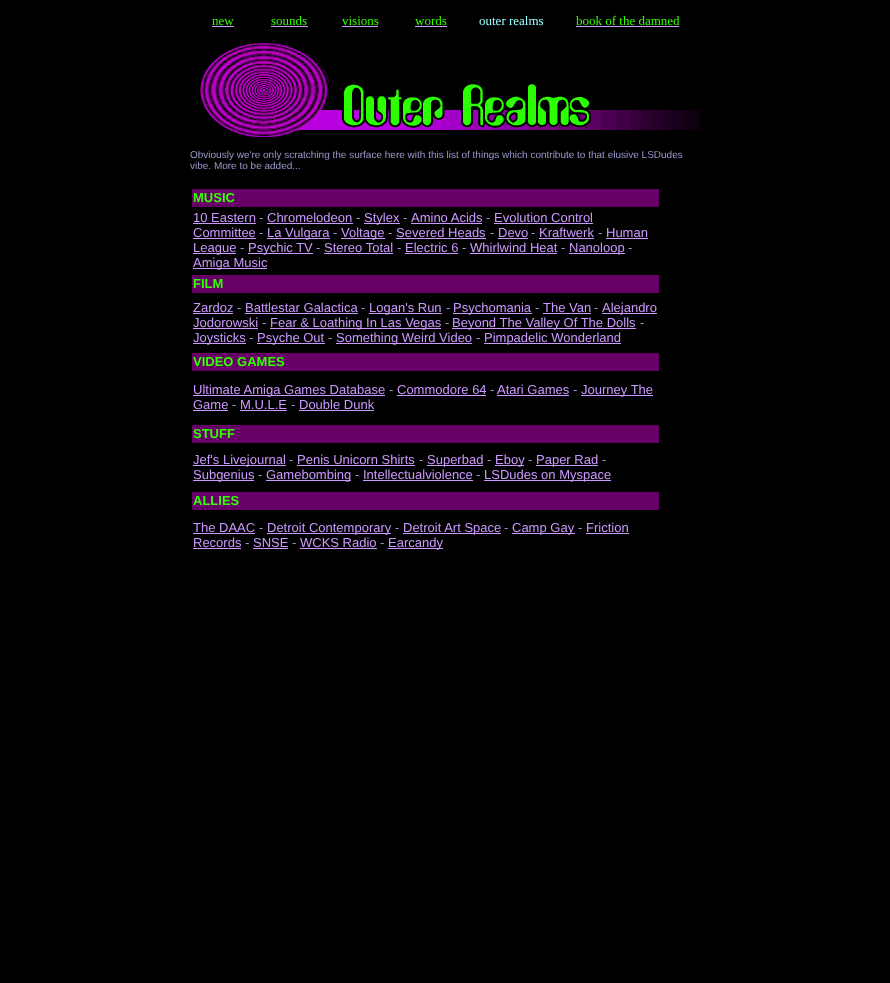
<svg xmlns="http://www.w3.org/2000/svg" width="890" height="983">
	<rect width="100%" height="100%" fill="#000000" />
	<text x="212" y="25" font-family="Liberation Serif" font-size="13" fill="#33FF00">new</text>
	<rect x="212" y="26" width="22" height="1" fill="#CC99FF" />
	<text x="271" y="25" font-family="Liberation Serif" font-size="13" fill="#33FF00">sounds</text>
	<rect x="271" y="26" width="37" height="1" fill="#CC99FF" />
	<text x="342" y="25" font-family="Liberation Serif" font-size="13" fill="#33FF00">visions</text>
	<rect x="342" y="26" width="36" height="1" fill="#CC99FF" />
	<text x="415" y="25" font-family="Liberation Serif" font-size="13" fill="#33FF00">words</text>
	<rect x="415" y="26" width="32" height="1" fill="#CC99FF" />
	<text x="479" y="25" font-family="Liberation Serif" font-size="13" fill="#99FFFF">outer realms</text>
	<text x="576" y="25" font-family="Liberation Serif" font-size="13" fill="#33FF00">book of the damned</text>
	<rect x="576" y="26" width="103" height="1" fill="#CC99FF" />
	<image x="200" y="43" width="500" height="94" href="assets/img1.png" />
	<g font-family="Liberation Sans" font-size="10" fill="#9999CC">
		<text x="190" y="158">Obviously we're only scratching the surface here with this list of things which contribute to that elusive LSDudes</text>
		<text x="190" y="169">vibe. More to be added...</text>
	</g>
	<rect x="192" y="189" width="467" height="18" fill="#660066" />
	<text x="193" y="202" font-family="Liberation Sans" font-size="13" font-weight="700" fill="#33FF00">MUSIC</text>
	<text x="193" y="222" font-family="Liberation Sans" font-size="13" fill="#CC99FF">10 Eastern</text>
	<rect x="193" y="223" width="63" height="1" fill="#CC99FF" />
	<text x="259" y="222" font-family="Liberation Sans" font-size="13" fill="#9999CC">-</text>
	<rect x="267" y="223" width="86" height="1" fill="#CC99FF" />
	<text x="267" y="222" font-family="Liberation Sans" font-size="13" fill="#CC99FF">Chromelodeon</text>
	<text x="356" y="222" font-family="Liberation Sans" font-size="13" fill="#9999CC">-</text>
	<rect x="364" y="223" width="36" height="1" fill="#CC99FF" />
	<text x="364" y="222" font-family="Liberation Sans" font-size="13" fill="#CC99FF">Stylex</text>
	<text x="403" y="222" font-family="Liberation Sans" font-size="13" fill="#9999CC">-</text>
	<text x="411" y="222" font-family="Liberation Sans" font-size="13" fill="#CC99FF">Amino Acids</text>
	<rect x="411" y="223" width="71" height="1" fill="#CC99FF" />
	<text x="486" y="222" font-family="Liberation Sans" font-size="13" fill="#9999CC">-</text>
	<text x="494" y="222" font-family="Liberation Sans" font-size="13" fill="#CC99FF">Evolution Control</text>
	<rect x="494" y="223" width="99" height="1" fill="#CC99FF" />
	<text x="193" y="237" font-family="Liberation Sans" font-size="13" fill="#CC99FF">Committee</text>
	<rect x="193" y="238" width="63" height="1" fill="#CC99FF" />
	<text x="259" y="237" font-family="Liberation Sans" font-size="13" fill="#9999CC">-</text>
	<rect x="267" y="238" width="63" height="1" fill="#CC99FF" />
	<text x="267" y="237" font-family="Liberation Sans" font-size="13" fill="#CC99FF">La Vulgara</text>
	<text x="333" y="237" font-family="Liberation Sans" font-size="13" fill="#9999CC">-</text>
	<rect x="341" y="238" width="44" height="1" fill="#CC99FF" />
	<text x="341" y="237" font-family="Liberation Sans" font-size="13" fill="#CC99FF">Voltage</text>
	<text x="388" y="237" font-family="Liberation Sans" font-size="13" fill="#9999CC">-</text>
	<rect x="396" y="238" width="90" height="1" fill="#CC99FF" />
	<text x="396" y="237" font-family="Liberation Sans" font-size="13" fill="#CC99FF">Severed Heads</text>
	<text x="490" y="237" font-family="Liberation Sans" font-size="13" fill="#9999CC">-</text>
	<text x="498" y="237" font-family="Liberation Sans" font-size="13" fill="#CC99FF">Devo</text>
	<rect x="498" y="238" width="30" height="1" fill="#CC99FF" />
	<text x="531" y="237" font-family="Liberation Sans" font-size="13" fill="#9999CC">-</text>
	<rect x="539" y="238" width="55" height="1" fill="#CC99FF" />
	<text x="539" y="237" font-family="Liberation Sans" font-size="13" fill="#CC99FF">Kraftwerk</text>
	<text x="598" y="237" font-family="Liberation Sans" font-size="13" fill="#9999CC">-</text>
	<text x="606" y="237" font-family="Liberation Sans" font-size="13" fill="#CC99FF">Human</text>
	<rect x="606" y="238" width="42" height="1" fill="#CC99FF" />
	<rect x="193" y="253" width="43" height="1" fill="#CC99FF" />
	<text x="193" y="252" font-family="Liberation Sans" font-size="13" fill="#CC99FF">League</text>
	<text x="240" y="252" font-family="Liberation Sans" font-size="13" fill="#9999CC">-</text>
	<rect x="248" y="253" width="65" height="1" fill="#CC99FF" />
	<text x="248" y="252" font-family="Liberation Sans" font-size="13" fill="#CC99FF">Psychic TV</text>
	<text x="316" y="252" font-family="Liberation Sans" font-size="13" fill="#9999CC">-</text>
	<rect x="324" y="253" width="69" height="1" fill="#CC99FF" />
	<text x="324" y="252" font-family="Liberation Sans" font-size="13" fill="#CC99FF">Stereo Total</text>
	<text x="397" y="252" font-family="Liberation Sans" font-size="13" fill="#9999CC">-</text>
	<text x="405" y="252" font-family="Liberation Sans" font-size="13" fill="#CC99FF">Electric 6</text>
	<rect x="405" y="253" width="53" height="1" fill="#CC99FF" />
	<text x="462" y="252" font-family="Liberation Sans" font-size="13" fill="#9999CC">-</text>
	<text x="470" y="252" font-family="Liberation Sans" font-size="13" fill="#CC99FF">Whirlwind Heat</text>
	<rect x="470" y="253" width="87" height="1" fill="#CC99FF" />
	<text x="561" y="252" font-family="Liberation Sans" font-size="13" fill="#9999CC">-</text>
	<rect x="569" y="253" width="56" height="1" fill="#CC99FF" />
	<text x="569" y="252" font-family="Liberation Sans" font-size="13" fill="#CC99FF">Nanoloop</text>
	<text x="628" y="252" font-family="Liberation Sans" font-size="13" fill="#9999CC">-</text>
	<rect x="193" y="268" width="74" height="1" fill="#CC99FF" />
	<text x="193" y="267" font-family="Liberation Sans" font-size="13" fill="#CC99FF">Amiga Music</text>
	<rect x="192" y="275" width="467" height="18" fill="#660066" />
	<text x="193" y="288" font-family="Liberation Sans" font-size="13" font-weight="700" fill="#33FF00">FILM</text>
	<text x="193" y="312" font-family="Liberation Sans" font-size="13" fill="#CC99FF">Zardoz</text>
	<rect x="193" y="313" width="40" height="1" fill="#CC99FF" />
	<text x="237" y="312" font-family="Liberation Sans" font-size="13" fill="#9999CC">-</text>
	<text x="245" y="312" font-family="Liberation Sans" font-size="13" fill="#CC99FF">Battlestar Galactica</text>
	<rect x="245" y="313" width="113" height="1" fill="#CC99FF" />
	<text x="361" y="312" font-family="Liberation Sans" font-size="13" fill="#9999CC">-</text>
	<rect x="369" y="313" width="73" height="1" fill="#CC99FF" />
	<text x="369" y="312" font-family="Liberation Sans" font-size="13" fill="#CC99FF">Logan's Run</text>
	<text x="446" y="312" font-family="Liberation Sans" font-size="13" fill="#9999CC">-</text>
	<rect x="453" y="313" width="79" height="1" fill="#CC99FF" />
	<text x="453" y="312" font-family="Liberation Sans" font-size="13" fill="#CC99FF">Psychomania</text>
	<text x="535" y="312" font-family="Liberation Sans" font-size="13" fill="#9999CC">-</text>
	<text x="543" y="312" font-family="Liberation Sans" font-size="13" fill="#CC99FF">The Van</text>
	<rect x="543" y="313" width="48" height="1" fill="#CC99FF" />
	<text x="594" y="312" font-family="Liberation Sans" font-size="13" fill="#9999CC">-</text>
	<rect x="602" y="313" width="55" height="1" fill="#CC99FF" />
	<g font-family="Liberation Sans" font-size="13" fill="#CC99FF">
		<text x="602" y="312">Alejandro</text>
		<text x="193" y="327">Jodorowski</text>
	</g>
	<rect x="193" y="328" width="65" height="1" fill="#CC99FF" />
	<text x="262" y="327" font-family="Liberation Sans" font-size="13" fill="#9999CC">-</text>
	<rect x="270" y="328" width="171" height="1" fill="#CC99FF" />
	<text x="270" y="327" font-family="Liberation Sans" font-size="13" fill="#CC99FF">Fear &amp; Loathing In Las Vegas</text>
	<text x="445" y="327" font-family="Liberation Sans" font-size="13" fill="#9999CC">-</text>
	<rect x="452" y="328" width="184" height="1" fill="#CC99FF" />
	<text x="452" y="327" font-family="Liberation Sans" font-size="13" fill="#CC99FF">Beyond The Valley Of The Dolls</text>
	<text x="640" y="327" font-family="Liberation Sans" font-size="13" fill="#9999CC">-</text>
	<rect x="193" y="343" width="53" height="1" fill="#CC99FF" />
	<text x="193" y="342" font-family="Liberation Sans" font-size="13" fill="#CC99FF">Joysticks</text>
	<text x="249" y="342" font-family="Liberation Sans" font-size="13" fill="#9999CC">-</text>
	<rect x="257" y="343" width="68" height="1" fill="#CC99FF" />
	<text x="257" y="342" font-family="Liberation Sans" font-size="13" fill="#CC99FF">Psyche Out</text>
	<text x="328" y="342" font-family="Liberation Sans" font-size="13" fill="#9999CC">-</text>
	<rect x="336" y="343" width="136" height="1" fill="#CC99FF" />
	<text x="336" y="342" font-family="Liberation Sans" font-size="13" fill="#CC99FF">Something Weird Video</text>
	<text x="476" y="342" font-family="Liberation Sans" font-size="13" fill="#9999CC">-</text>
	<rect x="484" y="343" width="137" height="1" fill="#CC99FF" />
	<text x="484" y="342" font-family="Liberation Sans" font-size="13" fill="#CC99FF">Pimpadelic Wonderland</text>
	<rect x="192" y="353" width="467" height="18" fill="#660066" />
	<text x="193" y="366" font-family="Liberation Sans" font-size="13" font-weight="700" fill="#33FF00">VIDEO GAMES</text>
	<rect x="193" y="395" width="192" height="1" fill="#CC99FF" />
	<text x="193" y="394" font-family="Liberation Sans" font-size="13" fill="#CC99FF">Ultimate Amiga Games Database</text>
	<text x="389" y="394" font-family="Liberation Sans" font-size="13" fill="#9999CC">-</text>
	<text x="397" y="394" font-family="Liberation Sans" font-size="13" fill="#CC99FF">Commodore 64</text>
	<rect x="397" y="395" width="89" height="1" fill="#CC99FF" />
	<text x="490" y="394" font-family="Liberation Sans" font-size="13" fill="#9999CC">-</text>
	<rect x="497" y="395" width="72" height="1" fill="#CC99FF" />
	<text x="497" y="394" font-family="Liberation Sans" font-size="13" fill="#CC99FF">Atari Games</text>
	<text x="573" y="394" font-family="Liberation Sans" font-size="13" fill="#9999CC">-</text>
	<rect x="581" y="395" width="72" height="1" fill="#CC99FF" />
	<g font-family="Liberation Sans" font-size="13" fill="#CC99FF">
		<text x="581" y="394">Journey The</text>
		<text x="193" y="409">Game</text>
	</g>
	<rect x="193" y="410" width="35" height="1" fill="#CC99FF" />
	<text x="232" y="409" font-family="Liberation Sans" font-size="13" fill="#9999CC">-</text>
	<text x="240" y="409" font-family="Liberation Sans" font-size="13" fill="#CC99FF">M.U.L.E</text>
	<rect x="240" y="410" width="47" height="1" fill="#CC99FF" />
	<text x="291" y="409" font-family="Liberation Sans" font-size="13" fill="#9999CC">-</text>
	<text x="299" y="409" font-family="Liberation Sans" font-size="13" fill="#CC99FF">Double Dunk</text>
	<rect x="299" y="410" width="75" height="1" fill="#CC99FF" />
	<rect x="192" y="425" width="467" height="18" fill="#660066" />
	<text x="193" y="438" font-family="Liberation Sans" font-size="13" font-weight="700" fill="#33FF00">STUFF</text>
	<rect x="193" y="465" width="93" height="1" fill="#CC99FF" />
	<text x="193" y="464" font-family="Liberation Sans" font-size="13" fill="#CC99FF">Jef's Livejournal</text>
	<text x="289" y="464" font-family="Liberation Sans" font-size="13" fill="#9999CC">-</text>
	<rect x="297" y="465" width="118" height="1" fill="#CC99FF" />
	<text x="297" y="464" font-family="Liberation Sans" font-size="13" fill="#CC99FF">Penis Unicorn Shirts</text>
	<text x="419" y="464" font-family="Liberation Sans" font-size="13" fill="#9999CC">-</text>
	<rect x="427" y="465" width="56" height="1" fill="#CC99FF" />
	<text x="427" y="464" font-family="Liberation Sans" font-size="13" fill="#CC99FF">Superbad</text>
	<text x="487" y="464" font-family="Liberation Sans" font-size="13" fill="#9999CC">-</text>
	<rect x="495" y="465" width="29" height="1" fill="#CC99FF" />
	<text x="495" y="464" font-family="Liberation Sans" font-size="13" fill="#CC99FF">Eboy</text>
	<text x="528" y="464" font-family="Liberation Sans" font-size="13" fill="#9999CC">-</text>
	<rect x="536" y="465" width="62" height="1" fill="#CC99FF" />
	<text x="536" y="464" font-family="Liberation Sans" font-size="13" fill="#CC99FF">Paper Rad</text>
	<text x="602" y="464" font-family="Liberation Sans" font-size="13" fill="#9999CC">-</text>
	<rect x="193" y="480" width="61" height="1" fill="#CC99FF" />
	<text x="193" y="479" font-family="Liberation Sans" font-size="13" fill="#CC99FF">Subgenius</text>
	<text x="258" y="479" font-family="Liberation Sans" font-size="13" fill="#9999CC">-</text>
	<rect x="266" y="480" width="85" height="1" fill="#CC99FF" />
	<text x="266" y="479" font-family="Liberation Sans" font-size="13" fill="#CC99FF">Gamebombing</text>
	<text x="355" y="479" font-family="Liberation Sans" font-size="13" fill="#9999CC">-</text>
	<text x="363" y="479" font-family="Liberation Sans" font-size="13" fill="#CC99FF">Intellectualviolence</text>
	<rect x="363" y="480" width="110" height="1" fill="#CC99FF" />
	<text x="476" y="479" font-family="Liberation Sans" font-size="13" fill="#9999CC">-</text>
	<rect x="484" y="480" width="127" height="1" fill="#CC99FF" />
	<text x="484" y="479" font-family="Liberation Sans" font-size="13" fill="#CC99FF">LSDudes on Myspace</text>
	<rect x="192" y="492" width="467" height="18" fill="#660066" />
	<text x="193" y="505" font-family="Liberation Sans" font-size="13" font-weight="700" fill="#33FF00">ALLIES</text>
	<text x="193" y="532" font-family="Liberation Sans" font-size="13" fill="#CC99FF">The DAAC</text>
	<rect x="193" y="533" width="62" height="1" fill="#CC99FF" />
	<text x="259" y="532" font-family="Liberation Sans" font-size="13" fill="#9999CC">-</text>
	<rect x="267" y="533" width="124" height="1" fill="#CC99FF" />
	<text x="267" y="532" font-family="Liberation Sans" font-size="13" fill="#CC99FF">Detroit Contemporary</text>
	<text x="395" y="532" font-family="Liberation Sans" font-size="13" fill="#9999CC">-</text>
	<rect x="403" y="533" width="98" height="1" fill="#CC99FF" />
	<text x="403" y="532" font-family="Liberation Sans" font-size="13" fill="#CC99FF">Detroit Art Space</text>
	<text x="504" y="532" font-family="Liberation Sans" font-size="13" fill="#9999CC">-</text>
	<rect x="512" y="533" width="63" height="1" fill="#CC99FF" />
	<text x="512" y="532" font-family="Liberation Sans" font-size="13" fill="#CC99FF">Camp Gay</text>
	<text x="578" y="532" font-family="Liberation Sans" font-size="13" fill="#9999CC">-</text>
	<text x="586" y="532" font-family="Liberation Sans" font-size="13" fill="#CC99FF">Friction</text>
	<rect x="586" y="533" width="43" height="1" fill="#CC99FF" />
	<text x="193" y="547" font-family="Liberation Sans" font-size="13" fill="#CC99FF">Records</text>
	<rect x="193" y="548" width="48" height="1" fill="#CC99FF" />
	<text x="245" y="547" font-family="Liberation Sans" font-size="13" fill="#9999CC">-</text>
	<text x="253" y="547" font-family="Liberation Sans" font-size="13" fill="#CC99FF">SNSE</text>
	<rect x="253" y="548" width="35" height="1" fill="#CC99FF" />
	<text x="292" y="547" font-family="Liberation Sans" font-size="13" fill="#9999CC">-</text>
	<text x="300" y="547" font-family="Liberation Sans" font-size="13" fill="#CC99FF">WCKS Radio</text>
	<rect x="300" y="548" width="77" height="1" fill="#CC99FF" />
	<text x="380" y="547" font-family="Liberation Sans" font-size="13" fill="#9999CC">-</text>
	<rect x="388" y="548" width="55" height="1" fill="#CC99FF" />
	<text x="388" y="547" font-family="Liberation Sans" font-size="13" fill="#CC99FF">Earcandy</text>
</svg>
